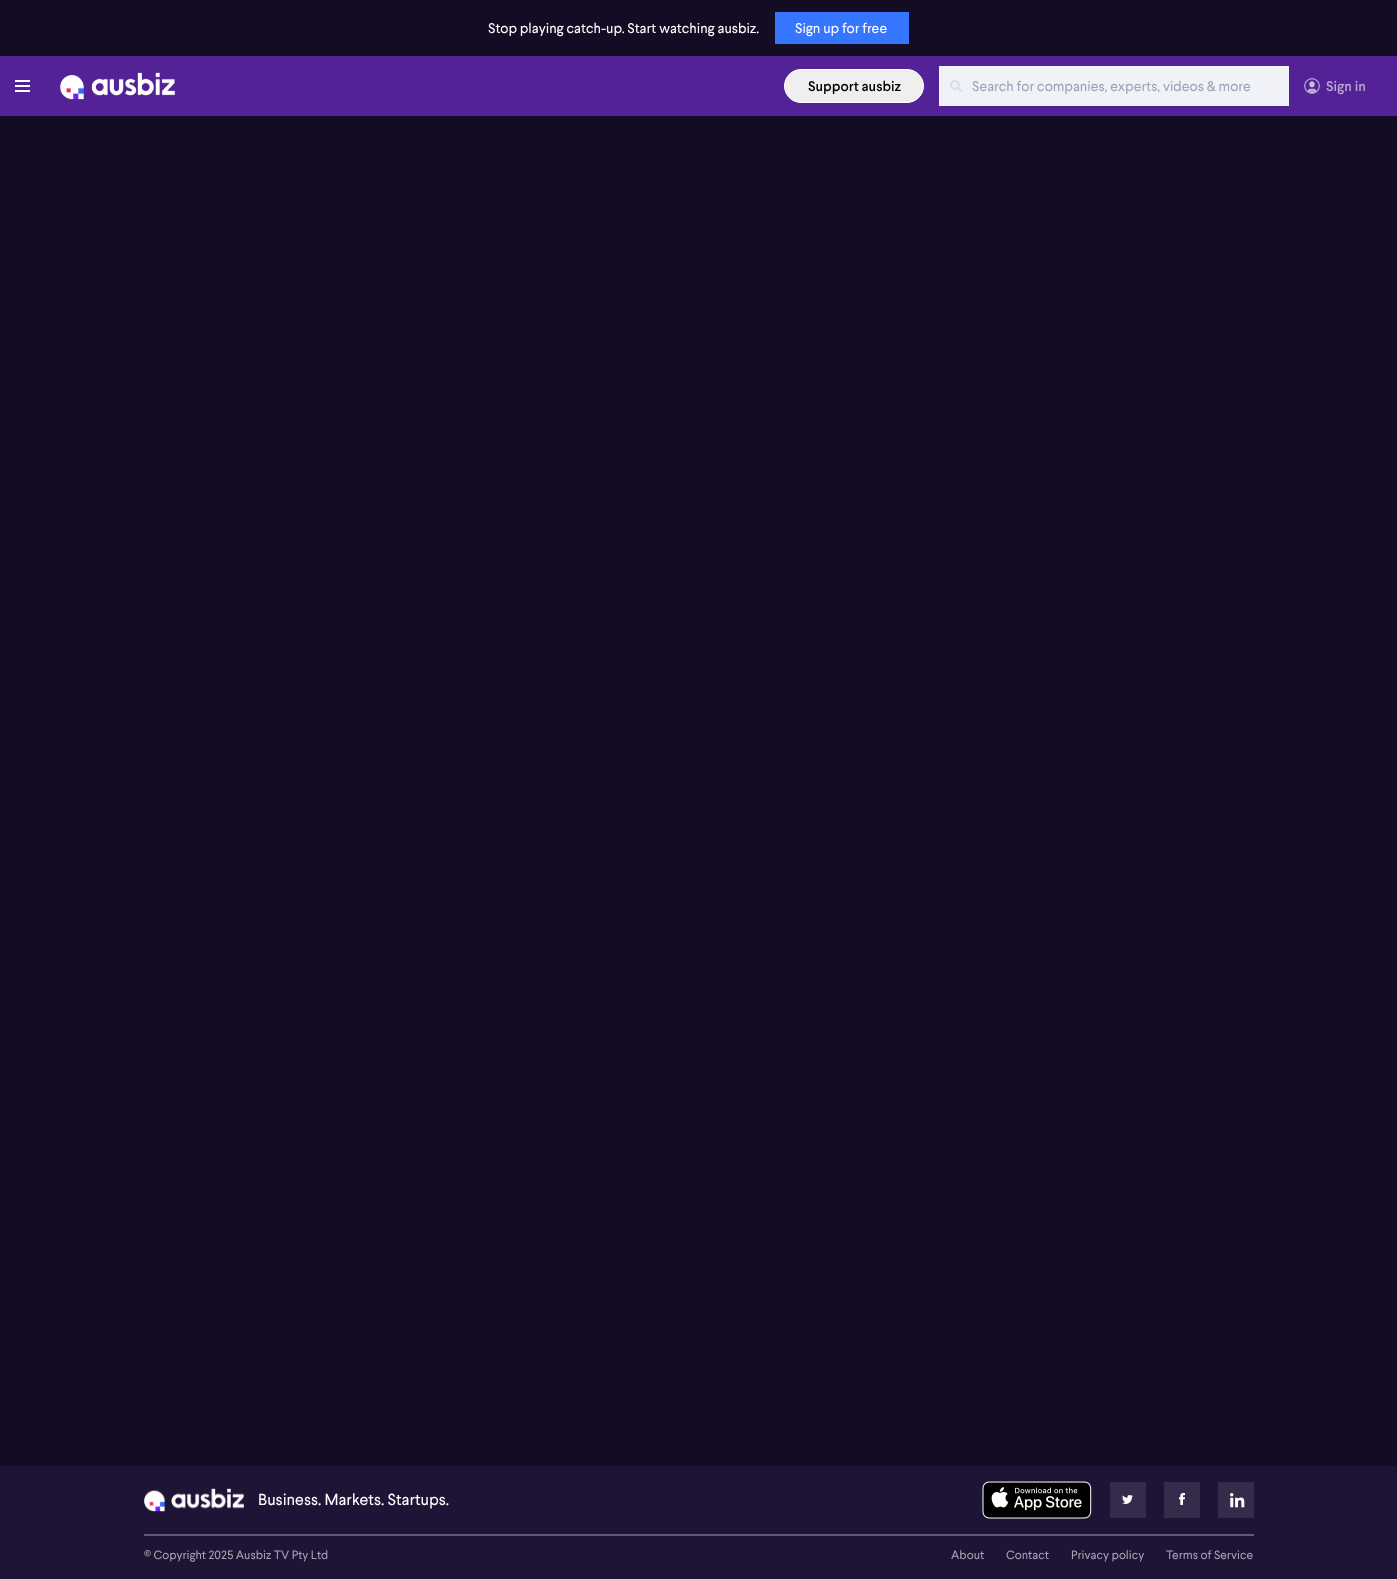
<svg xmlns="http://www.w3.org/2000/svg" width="1397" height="1579">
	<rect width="100%" height="100%" fill="#140C25" />
	<text x="488" y="33" font-family="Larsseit" font-size="14" fill="#FFFFFF">Stop playing catch-up. Start watching ausbiz.</text>
	<rect x="775" y="12" width="134" height="32" fill="#3675FF" />
	<text x="795" y="33" font-family="Larsseit" font-size="14" fill="#FFFFFF">Sign up for free</text>
	<rect x="0" y="56" width="1397" height="60" fill="#522296" />
	<rect x="15" y="80" width="15" height="2" fill="#FFFFFF" />
	<rect x="15" y="85" width="15" height="2" fill="#FFFFFF" />
	<rect x="15" y="90" width="15" height="2" fill="#FFFFFF" />
	<image x="60" y="72" width="115" height="28" href="assets/img1.png" />
	<rect x="784.5" y="69.5" width="139" height="33" rx="16.5" fill="#EFEFEF" stroke="#FFFFFF" />
	<text x="808" y="91" font-family="Larsseit" font-size="14" font-weight="500" fill="#000000">Support ausbiz</text>
	<rect x="939" y="66" width="350" height="40" fill="#F0F2F8" />
	<image x="950" y="80" width="12" height="12" href="assets/img2.png" />
	<text x="972" y="91" font-family="Larsseit" font-size="14" fill="#9BA5B9">Search for companies, experts, videos &amp; more</text>
	<image x="1304" y="78" width="16" height="16" href="assets/img3.png" />
	<text x="1326" y="91" font-family="Larsseit" font-size="14" font-weight="500" fill="#BAA7D5">Sign in</text>
	<rect x="0" y="1466" width="1397" height="113" fill="#1E1436" />
	<image x="144" y="1488" width="100" height="24" href="assets/img4.png" />
	<text x="258" y="1505" font-family="Larsseit" font-size="16" fill="#FFFFFF">Business. Markets. Startups.</text>
	<image x="982" y="1481" width="110" height="38" href="assets/img5.png" />
	<image x="1110" y="1482" width="36" height="36" href="assets/img6.png" />
	<image x="1164" y="1482" width="36" height="36" href="assets/img7.png" />
	<image x="1218" y="1482" width="36" height="36" href="assets/img8.png" />
	<rect x="144" y="1534" width="1110" height="2" fill="#5D5B74" />
	<g font-family="Larsseit" font-size="12" fill="#A5A1AF">
		<text x="144" y="1559">© Copyright 2025 Ausbiz TV Pty Ltd</text>
		<text x="951" y="1559">About</text>
		<text x="1006" y="1559">Contact</text>
		<text x="1071" y="1559">Privacy policy</text>
		<text x="1166" y="1559">Terms of Service</text>
	</g>
</svg>
